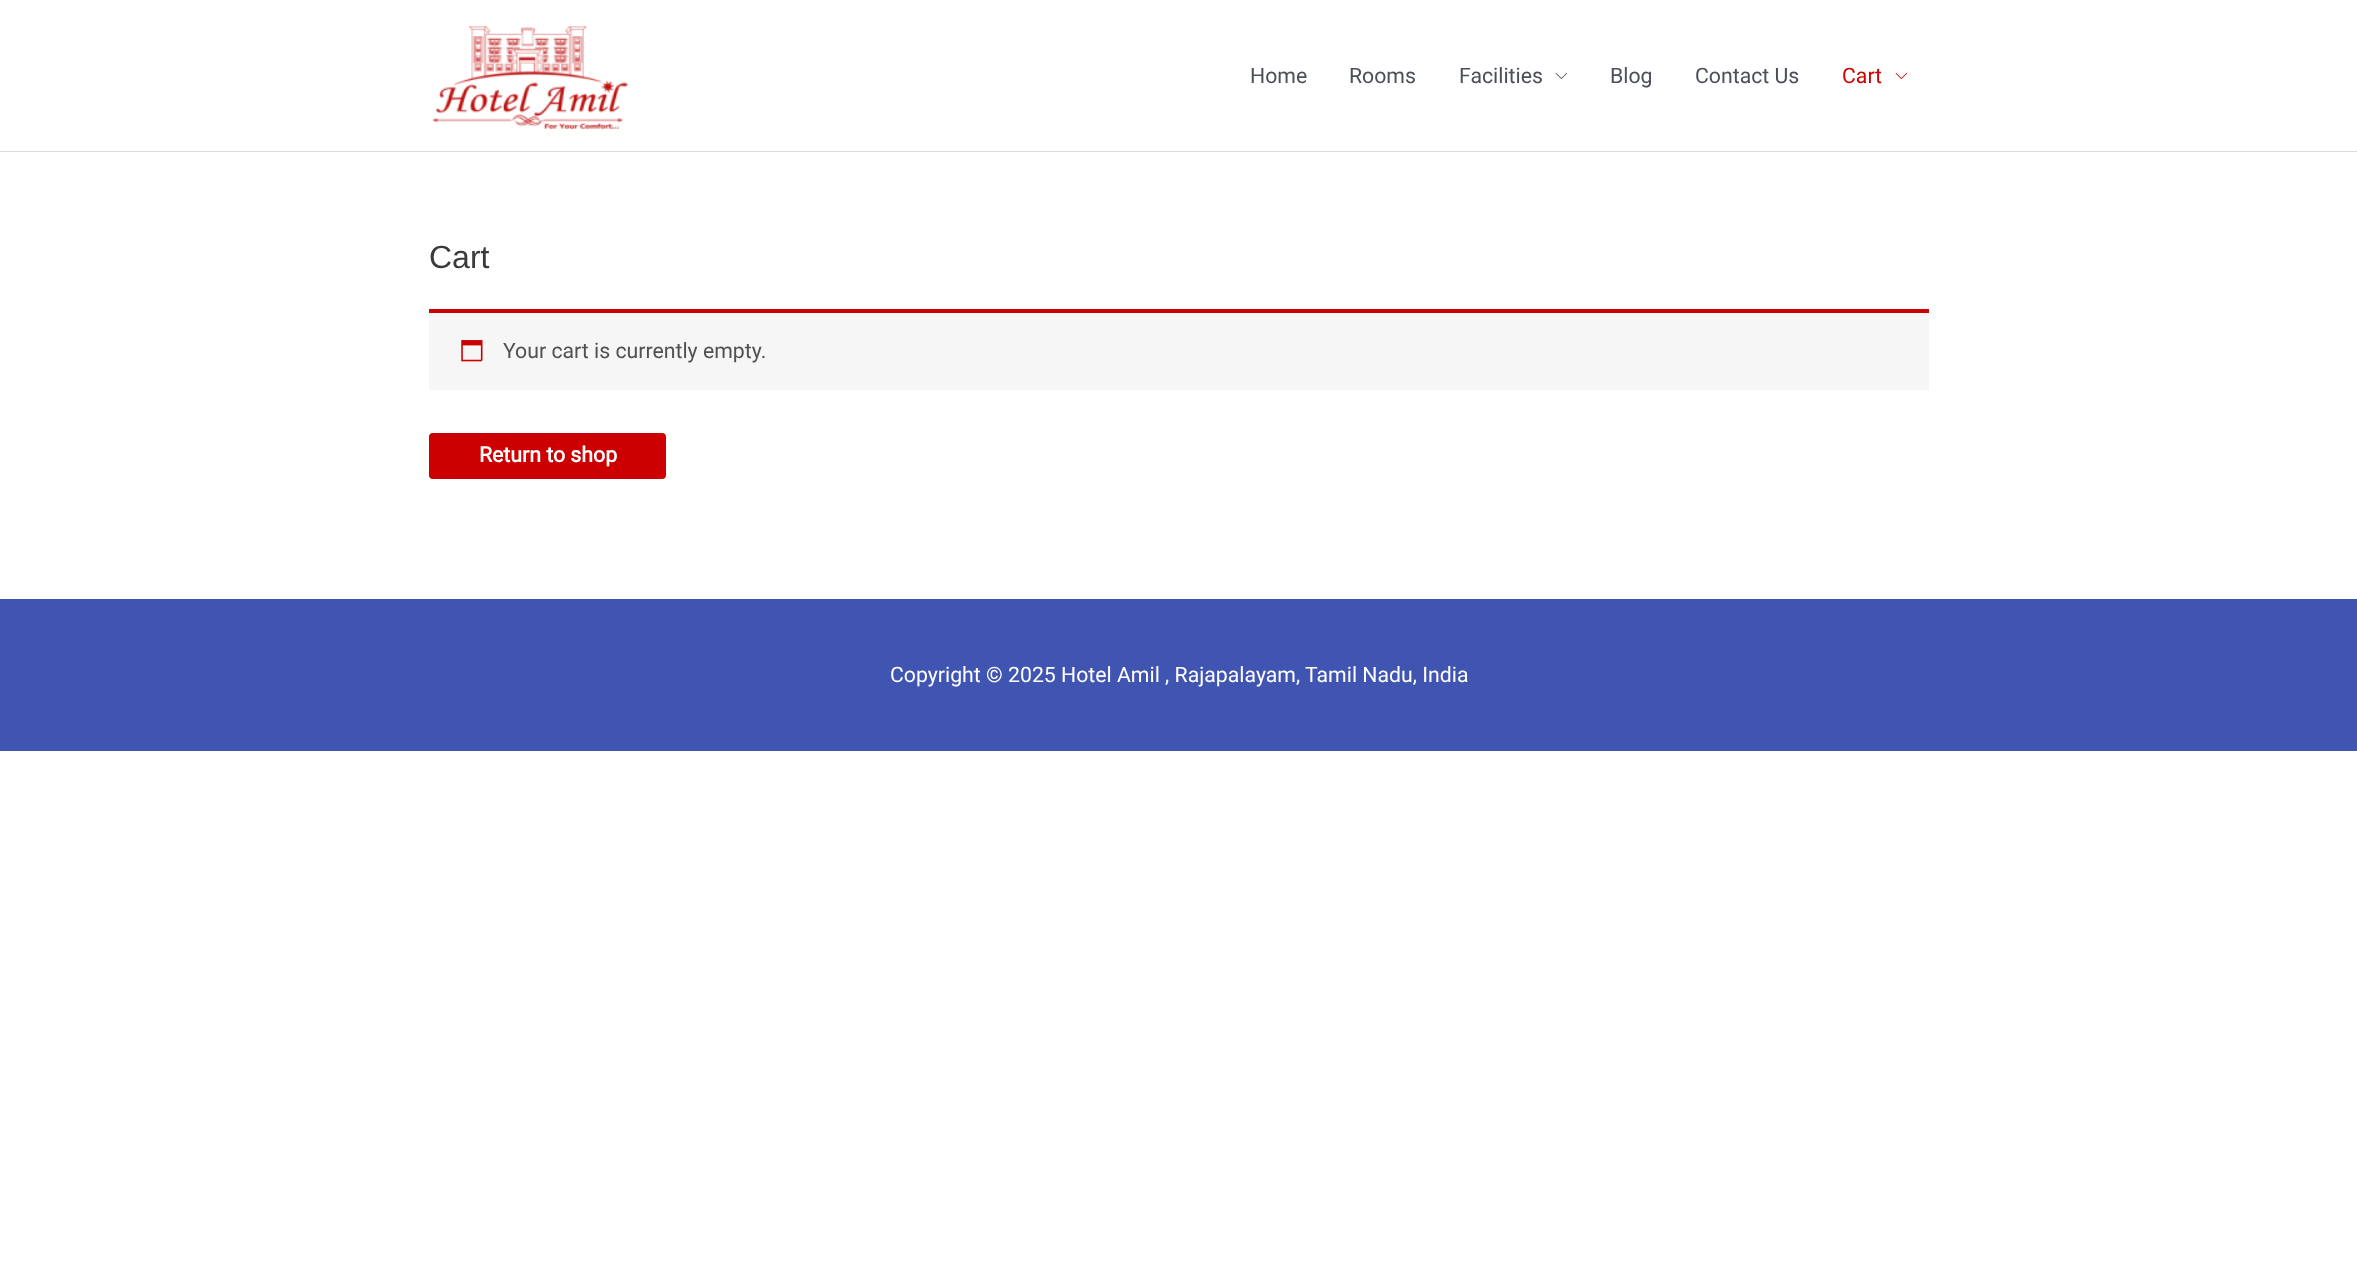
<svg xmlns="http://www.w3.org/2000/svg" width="2357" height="1277">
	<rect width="100%" height="100%" fill="#FFFFFF" />
	<rect x="0" y="151" width="2357" height="1" fill="#DDDDDD" />
	<image x="432" y="26" width="196" height="103" href="assets/img1.png" />
	<g font-family="Roboto" font-size="21.25" fill="#4B4F58">
		<text x="1250" y="83">Home</text>
		<text x="1349" y="83">Rooms</text>
		<text x="1459" y="83">Facilities</text>
	</g>
	<image x="1555" y="72" width="13" height="7" href="assets/img2.png" />
	<g font-family="Roboto" font-size="21.25" fill="#4B4F58">
		<text x="1610" y="83">Blog</text>
		<text x="1695" y="83">Contact Us</text>
	</g>
	<text x="1842" y="83" font-family="Roboto" font-size="21.25" fill="#CC0000">Cart</text>
	<image x="1895" y="72" width="13" height="7" href="assets/img3.png" />
	<text x="429" y="268" font-family="Liberation Sans" font-size="32" fill="#3A3A3A">Cart</text>
	<rect x="429" y="313" width="1500" height="77" fill="#F7F6F7" />
	<rect x="429" y="309" width="1500" height="4" fill="#CC0000" />
	<image x="461" y="340" width="22" height="22" href="assets/img4.png" />
	<text x="503" y="358" font-family="Roboto" font-size="21.25" fill="#515151">Your cart is currently empty.</text>
	<rect x="429" y="433" width="237" height="46" rx="4" fill="#CC0000" />
	<text x="479" y="462" font-family="Roboto" font-size="21.25" font-weight="700" fill="#FFFFFF">Return to shop</text>
	<rect x="0" y="599" width="2357" height="152" fill="#4054B2" />
	<text x="890" y="682" font-family="Roboto" font-size="21.25" fill="#FFFFFF">Copyright © 2025 Hotel Amil , Rajapalayam, Tamil Nadu, India</text>
</svg>
